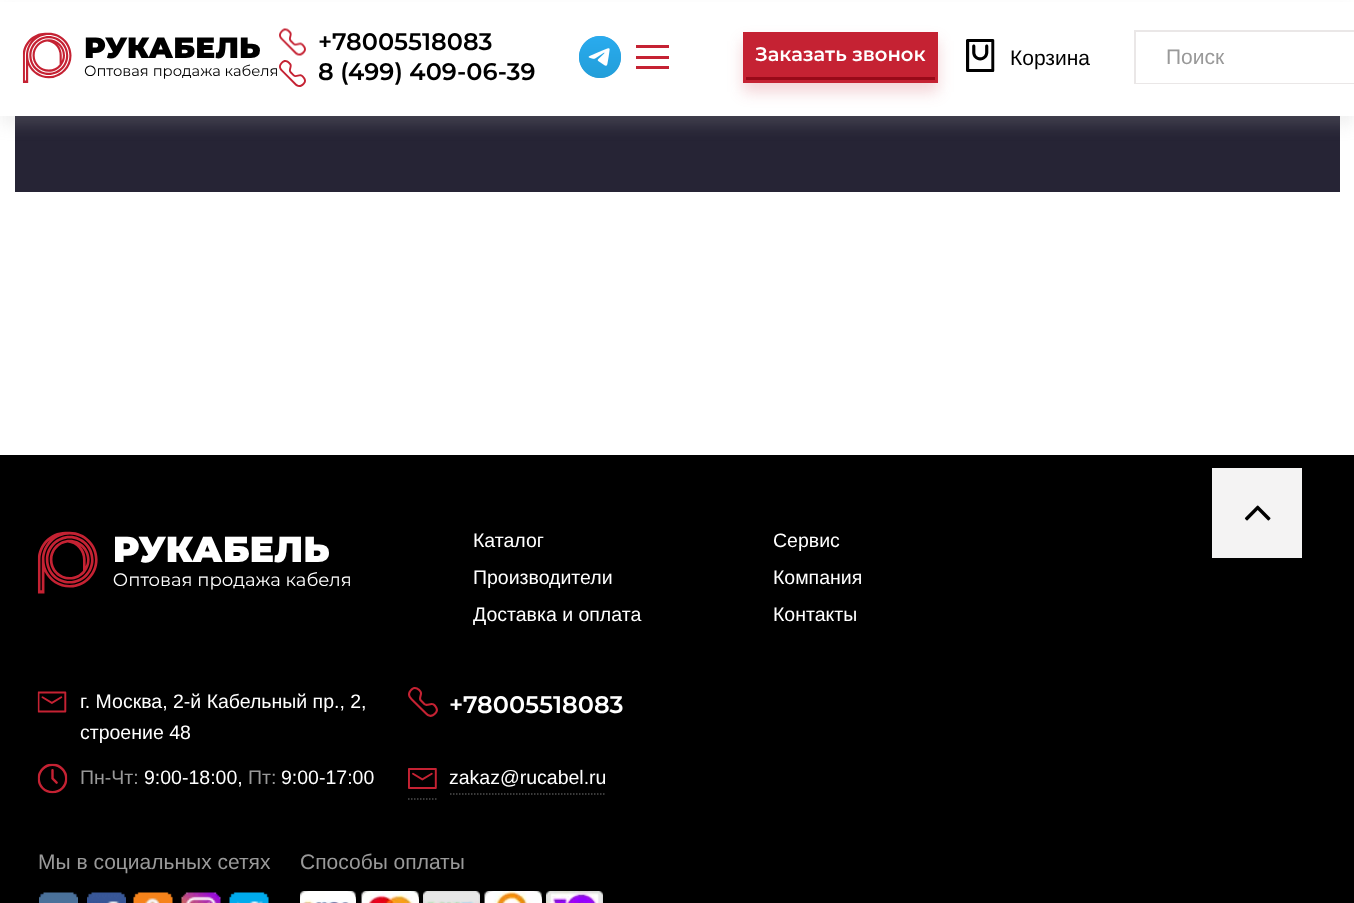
<svg xmlns="http://www.w3.org/2000/svg" width="1354" height="903">
	<rect width="100%" height="100%" fill="#FFFFFF" />
	<rect x="15" y="116" width="1325" height="76" fill="#262435" />
	<rect x="0" y="9" width="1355" height="116" fill="#B4B4B4" fill-opacity="0.2" filter="blur(7.5px)" />
	<rect x="0" y="2" width="1354" height="114" fill="#FFFFFF" />
	<image x="22" y="32" width="255" height="51" href="assets/img1.png" />
	<image x="279" y="28" width="27" height="28" href="assets/img2.png" />
	<text x="318" y="50" font-family="Montserrat" font-size="24" font-weight="600" fill="#000000">+78005518083</text>
	<image x="279" y="60" width="27" height="27" href="assets/img3.png" />
	<text x="318" y="80" font-family="Montserrat" font-size="24" font-weight="600" fill="#000000">8 (499) 409-06-39</text>
	<image x="579" y="36" width="42" height="42" href="assets/img4.png" />
	<rect x="636" y="45" width="33" height="3" fill="#C52233" />
	<rect x="636" y="56" width="33" height="3" fill="#C52233" />
	<rect x="636" y="66" width="33" height="3" fill="#C52233" />
	<rect x="743" y="41" width="195" height="51" fill="#C52233" fill-opacity="0.2" filter="blur(7.5px)" />
	<rect x="743" y="32" width="195" height="51" fill="#C52233" />
	<rect x="746" y="77" width="189" height="3" fill="#980A19" />
	<text x="755" y="61" font-family="Montserrat" font-size="19.5" font-weight="600" fill="#FFFFFF">Заказать звонок</text>
	<image x="966" y="39" width="29" height="33" href="assets/img5.png" />
	<text x="1010" y="65" font-family="Liberation Sans" font-size="21" fill="#000000">Корзина</text>
	<rect x="1135" y="31" width="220" height="52" fill="none" stroke="#EAE7E7" stroke-width="2" />
	<rect x="1136" y="82" width="218" height="1" fill="#FFFFFF" />
	<text x="1166" y="64" font-family="Liberation Sans" font-size="21" fill="#999999">Поиск</text>
	<rect x="0" y="455" width="1354" height="448" fill="#000000" />
	<image x="37" y="531" width="313" height="63" href="assets/img6.png" />
	<g font-family="Liberation Sans" font-size="19.5" fill="#FFFFFF">
		<text x="473" y="547">Каталог</text>
		<text x="473" y="584">Производители</text>
		<text x="473" y="621">Доставка и оплата</text>
		<text x="773" y="547">Сервис</text>
		<text x="773" y="584">Компания</text>
		<text x="773" y="621">Контакты</text>
	</g>
	<image x="37" y="691" width="30" height="22" href="assets/img7.png" />
	<g font-family="Liberation Sans" font-size="19.5" fill="#FFFFFF">
		<text x="80" y="708">г. Москва, 2-й Кабельный пр., 2,</text>
		<text x="80" y="739">строение 48</text>
	</g>
	<image x="408" y="687" width="30" height="30" href="assets/img8.png" />
	<text x="449" y="713" font-family="Montserrat" font-size="24" font-weight="600" fill="#FFFFFF">+78005518083</text>
	<image x="37" y="763" width="31" height="31" href="assets/img9.png" />
	<text x="80" y="784" font-family="Liberation Sans" font-size="19.5" fill="#999999">Пн-Чт:</text>
	<text x="144" y="784" font-family="Liberation Sans" font-size="19.5" fill="#FFFFFF">9:00-18:00,</text>
	<text x="248" y="784" font-family="Liberation Sans" font-size="19.5" fill="#999999">Пт:</text>
	<text x="281" y="784" font-family="Liberation Sans" font-size="19.5" fill="#FFFFFF">9:00-17:00</text>
	<path d="M408 799H438" fill="none" stroke="#4D4D4D" stroke-width="1.5" stroke-dasharray="1.5 1.5" />
	<path d="M450 794H606" fill="none" stroke="#4D4D4D" stroke-width="1.5" stroke-dasharray="1.5 1.5" />
	<image x="408" y="768" width="29" height="21" href="assets/img10.png" />
	<text x="449" y="784" font-family="Liberation Sans" font-size="19.5" fill="#FFFFFF">zakaz@rucabel.ru</text>
	<text x="38" y="869" font-family="Liberation Sans" font-size="21" fill="#999999">Мы в социальных сетях</text>
	<image x="39" y="892" width="39" height="11" href="assets/img11.png" />
	<image x="87" y="892" width="39" height="11" href="assets/img12.png" />
	<image x="133" y="892" width="40" height="11" href="assets/img13.png" />
	<image x="181" y="892" width="40" height="11" href="assets/img14.png" />
	<image x="229" y="892" width="40" height="11" href="assets/img15.png" />
	<text x="300" y="869" font-family="Liberation Sans" font-size="21" fill="#999999">Способы оплаты</text>
	<rect x="300" y="891" width="56" height="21" rx="9" fill="#FFFFFF" />
	<image x="300" y="891" width="56" height="12" href="assets/img16.png" />
	<rect x="362" y="891" width="57" height="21" rx="9" fill="#FFFFFF" />
	<image x="361" y="891" width="58" height="12" href="assets/img17.png" />
	<image x="423" y="891" width="57" height="12" href="assets/img18.png" />
	<rect x="485" y="891" width="57" height="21" rx="9" fill="#FFFFFF" />
	<image x="484" y="891" width="58" height="12" href="assets/img19.png" />
	<image x="546" y="891" width="57" height="12" href="assets/img20.png" />
	<image x="1212" y="468" width="90" height="90" href="assets/img21.png" />
</svg>
